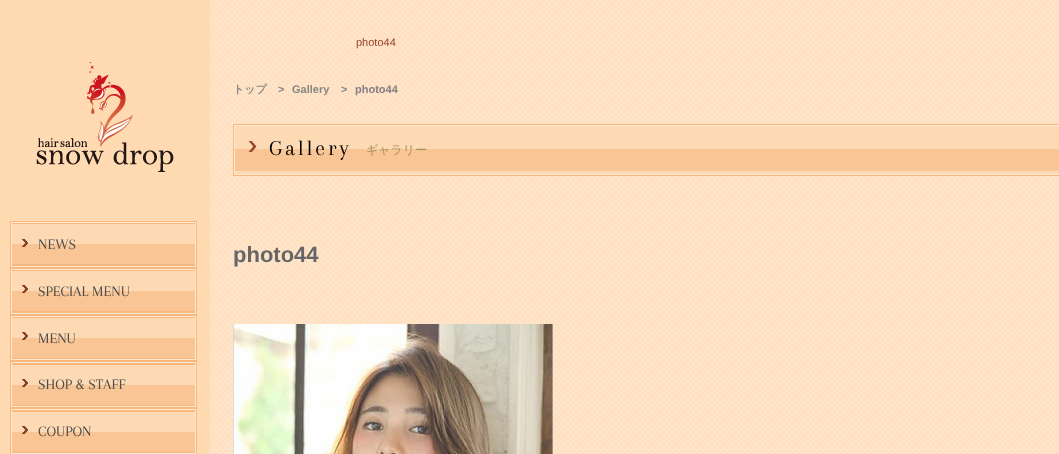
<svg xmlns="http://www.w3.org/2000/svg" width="1059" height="454">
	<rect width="100%" height="100%" fill="#FEE0C0" />
	<image x="0" y="0" width="1059" height="454" href="assets/img1.png" />
	<rect x="0" y="0" width="210" height="454" fill="#FFD6AA" fill-opacity="0.7" />
	<text x="356" y="46" font-family="Liberation Sans" font-size="11" fill="#964327">photo44</text>
	<text x="233" y="93" font-family="WenQuanYi Zen Hei" font-size="11" font-weight="700" fill="#868686">トップ</text>
	<g font-family="Liberation Sans" font-size="11" font-weight="700" fill="#868686">
		<text x="278" y="93">&gt;</text>
		<text x="292" y="93">Gallery</text>
		<text x="341" y="93">&gt;</text>
	</g>
	<text x="355" y="93" font-family="Liberation Sans" font-size="11" font-weight="700" fill="#857E85">photo44</text>
	<image x="235" y="126" width="824" height="48" href="assets/img2.png" />
	<rect x="233.5" y="124.5" width="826" height="51" fill="none" stroke="#F8B87D" />
	<rect x="234.5" y="125.5" width="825" height="49" fill="none" stroke="#FEEAD3" />
	<image x="248" y="141" width="9" height="11" href="assets/img3.png" />
	<text x="269" y="155" font-family="Arapey" font-size="22" letter-spacing="3" fill="#000000">Gallery</text>
	<text x="366" y="154" font-family="WenQuanYi Zen Hei" font-size="12" font-weight="500" fill="#A18E61">ギャラリー</text>
	<text x="233" y="262" font-family="Liberation Sans" font-size="22" font-weight="700" fill="#666666">photo44</text>
	<image x="233" y="324" width="320" height="130" href="assets/img4.png" />
	<image x="36" y="62" width="138" height="110" href="assets/img5.png" />
	<rect x="10" y="221" width="187" height="233" fill="#F8B87D" />
	<image x="12" y="224" width="183" height="40" href="assets/img6.png" />
	<rect x="11.5" y="222.5" width="184" height="44" fill="none" stroke="#FEEAD3" />
	<image x="22" y="239" width="6" height="8" href="assets/img7.png" />
	<text x="38" y="249" font-family="Arapey" font-size="15" fill="#4B4B4B">NEWS</text>
	<image x="12" y="271" width="183" height="40" href="assets/img6.png" />
	<rect x="11.5" y="269.5" width="184" height="44" fill="none" stroke="#FEEAD3" />
	<image x="22" y="285" width="6" height="8" href="assets/img8.png" />
	<text x="38" y="296" font-family="Arapey" font-size="15" fill="#4B4B4B">SPECIAL MENU</text>
	<image x="12" y="318" width="183" height="40" href="assets/img6.png" />
	<rect x="11.5" y="316.5" width="184" height="43" fill="none" stroke="#FEEAD3" />
	<image x="22" y="332" width="6" height="8" href="assets/img8.png" />
	<text x="38" y="343" font-family="Arapey" font-size="15" fill="#4B4B4B">MENU</text>
	<image x="12" y="365" width="183" height="40" href="assets/img6.png" />
	<rect x="11.5" y="362.5" width="184" height="44" fill="none" stroke="#FEEAD3" />
	<image x="22" y="379" width="6" height="8" href="assets/img8.png" />
	<text x="38" y="389" font-family="Arapey" font-size="15" fill="#4B4B4B">SHOP &amp; STAFF</text>
	<image x="12" y="412" width="183" height="40" href="assets/img6.png" />
	<rect x="11.5" y="409.5" width="184" height="44" fill="none" stroke="#FEEAD3" />
	<image x="22" y="426" width="6" height="8" href="assets/img8.png" />
	<text x="38" y="436" font-family="Arapey" font-size="15" fill="#4B4B4B">COUPON</text>
</svg>
